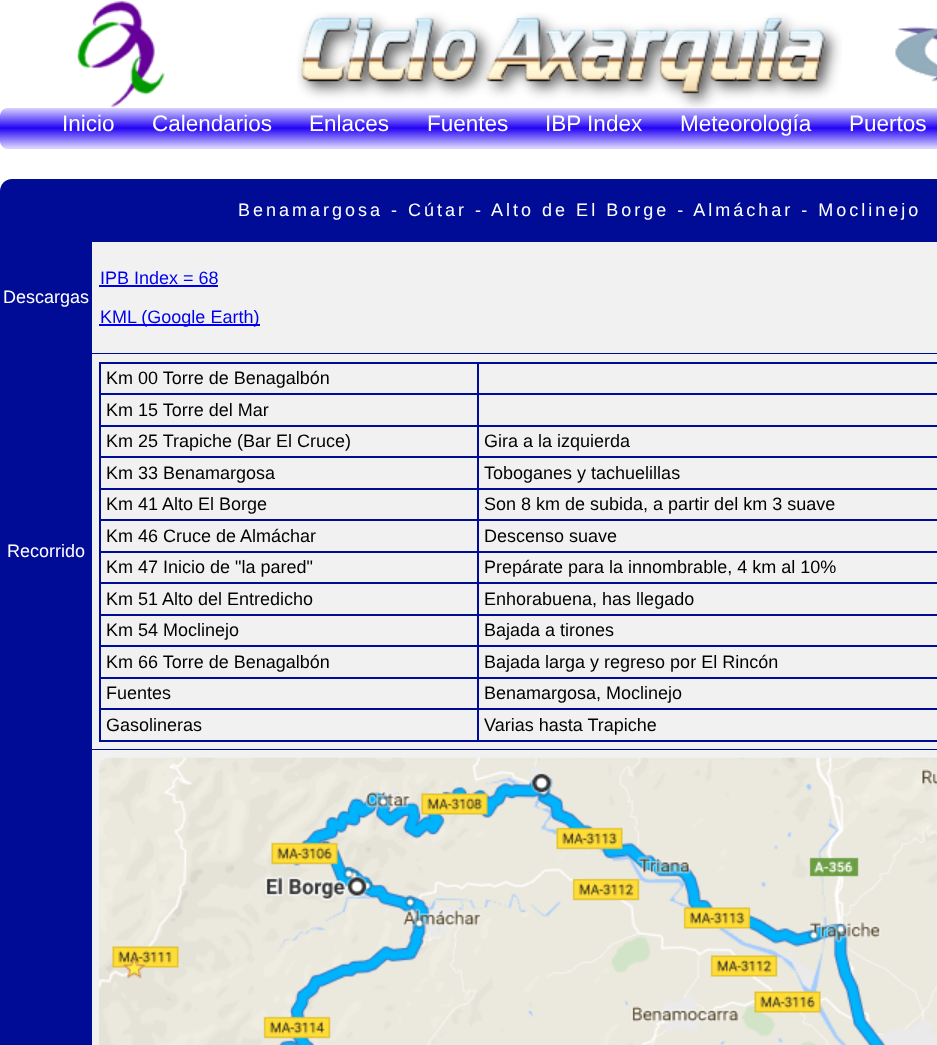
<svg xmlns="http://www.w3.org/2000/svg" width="937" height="1045">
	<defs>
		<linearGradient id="g1" gradientUnits="userSpaceOnUse" x1="585" y1="108" x2="585" y2="149"><stop offset="0" stop-color="#D8D2FE" /><stop offset="0.49" stop-color="#2403F5" /><stop offset="0.97" stop-color="#D8D2FE" /></linearGradient>
	</defs>
	<rect width="100%" height="100%" fill="#FFFFFF" />
	<image x="76" y="0" width="89" height="108" href="assets/img1.png" />
	<image x="297" y="12" width="545" height="96" href="assets/img2.png" />
	<image x="895" y="26" width="42" height="56" href="assets/img3.png" />
	<path d="M8 108H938V149H8C3.5 149 0 145.5 0 141V116C0 111.5 3.5 108 8 108Z" fill="url(#g1)" />
	<g font-family="Liberation Sans" font-size="22.5" fill="#FFFFFF">
		<text x="62" y="131">Inicio</text>
		<text x="152" y="131">Calendarios</text>
		<text x="309" y="131">Enlaces</text>
		<text x="427" y="131">Fuentes</text>
		<text x="545" y="131">IBP Index</text>
		<text x="680" y="131">Meteorología</text>
		<text x="849" y="131">Puertos</text>
	</g>
	<path d="M12 179H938V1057H0V191C0 184.5 5.5 179 12 179Z" fill="#000C96" />
	<text x="238" y="216" font-family="Liberation Sans" font-size="18" letter-spacing="3" fill="#FFFFFF">Benamargosa - Cútar - Alto de El Borge - Almáchar - Moclinejo</text>
	<text x="3" y="303" font-family="Liberation Sans" font-size="18" fill="#FFFFFF">Descargas</text>
	<rect x="92" y="242" width="845" height="111" fill="#F1F1F1" />
	<text x="100" y="284" font-family="Liberation Sans" font-size="18" fill="#0000EE">IPB Index = 68</text>
	<rect x="99" y="285" width="119" height="2" fill="#0000EE" />
	<rect x="99" y="324" width="161" height="2" fill="#0000EE" />
	<text x="100" y="323" font-family="Liberation Sans" font-size="18" fill="#0000EE">KML (Google Earth)</text>
	<text x="7" y="557" font-family="Liberation Sans" font-size="18" fill="#FFFFFF">Recorrido</text>
	<rect x="92" y="354" width="845" height="395" fill="#F1F1F1" />
	<rect x="477" y="362" width="460" height="2" fill="#000C96" />
	<rect x="477" y="393" width="460" height="2" fill="#000C96" />
	<rect x="477" y="425" width="460" height="2" fill="#000C96" />
	<rect x="477" y="456" width="460" height="2" fill="#000C96" />
	<rect x="477" y="488" width="460" height="2" fill="#000C96" />
	<rect x="477" y="519" width="460" height="2" fill="#000C96" />
	<rect x="477" y="551" width="460" height="2" fill="#000C96" />
	<rect x="477" y="582" width="460" height="2" fill="#000C96" />
	<rect x="477" y="614" width="460" height="2" fill="#000C96" />
	<rect x="477" y="645" width="460" height="2" fill="#000C96" />
	<rect x="477" y="677" width="460" height="2" fill="#000C96" />
	<rect x="477" y="708" width="460" height="2" fill="#000C96" />
	<rect x="477" y="740" width="460" height="2" fill="#000C96" />
	<rect x="477" y="708" width="2" height="33" fill="#000C96" />
	<rect x="99" y="708" width="380" height="2" fill="#000C96" />
	<rect x="477" y="677" width="2" height="33" fill="#000C96" />
	<rect x="99" y="677" width="380" height="2" fill="#000C96" />
	<rect x="477" y="645" width="2" height="33" fill="#000C96" />
	<rect x="99" y="645" width="380" height="2" fill="#000C96" />
	<rect x="477" y="614" width="2" height="33" fill="#000C96" />
	<rect x="99" y="614" width="380" height="2" fill="#000C96" />
	<rect x="477" y="582" width="2" height="33" fill="#000C96" />
	<rect x="99" y="582" width="380" height="2" fill="#000C96" />
	<rect x="477" y="551" width="2" height="33" fill="#000C96" />
	<rect x="99" y="551" width="380" height="2" fill="#000C96" />
	<rect x="477" y="519" width="2" height="33" fill="#000C96" />
	<rect x="99" y="519" width="380" height="2" fill="#000C96" />
	<rect x="477" y="488" width="2" height="33" fill="#000C96" />
	<rect x="99" y="488" width="380" height="2" fill="#000C96" />
	<rect x="477" y="456" width="2" height="33" fill="#000C96" />
	<rect x="99" y="456" width="380" height="2" fill="#000C96" />
	<rect x="477" y="425" width="2" height="33" fill="#000C96" />
	<rect x="99" y="425" width="380" height="2" fill="#000C96" />
	<rect x="477" y="393" width="2" height="33" fill="#000C96" />
	<rect x="99" y="393" width="380" height="2" fill="#000C96" />
	<rect x="477" y="362" width="2" height="33" fill="#000C96" />
	<rect x="99" y="362" width="380" height="2" fill="#000C96" />
	<rect x="99" y="740" width="380" height="2" fill="#000C96" />
	<rect x="99" y="708" width="2" height="33" fill="#000C96" />
	<rect x="99" y="677" width="2" height="33" fill="#000C96" />
	<rect x="99" y="645" width="2" height="33" fill="#000C96" />
	<rect x="99" y="614" width="2" height="33" fill="#000C96" />
	<rect x="99" y="582" width="2" height="33" fill="#000C96" />
	<rect x="99" y="551" width="2" height="33" fill="#000C96" />
	<rect x="99" y="519" width="2" height="33" fill="#000C96" />
	<rect x="99" y="488" width="2" height="33" fill="#000C96" />
	<rect x="99" y="456" width="2" height="33" fill="#000C96" />
	<rect x="99" y="425" width="2" height="33" fill="#000C96" />
	<rect x="99" y="393" width="2" height="33" fill="#000C96" />
	<rect x="99" y="362" width="2" height="33" fill="#000C96" />
	<g font-family="Liberation Sans" font-size="18" fill="#000000">
		<text x="106" y="384">Km 00 Torre de Benagalbón</text>
		<text x="106" y="416">Km 15 Torre del Mar</text>
		<text x="106" y="447">Km 25 Trapiche (Bar El Cruce)</text>
		<text x="484" y="447">Gira a la izquierda</text>
		<text x="106" y="479">Km 33 Benamargosa</text>
		<text x="484" y="479">Toboganes y tachuelillas</text>
		<text x="106" y="510">Km 41 Alto El Borge</text>
		<text x="484" y="510">Son 8 km de subida, a partir del km 3 suave</text>
		<text x="106" y="542">Km 46 Cruce de Almáchar</text>
		<text x="484" y="542">Descenso suave</text>
		<text x="106" y="573">Km 47 Inicio de "la pared"</text>
		<text x="484" y="573">Prepárate para la innombrable, 4 km al 10%</text>
		<text x="106" y="605">Km 51 Alto del Entredicho</text>
		<text x="484" y="605">Enhorabuena, has llegado</text>
		<text x="106" y="636">Km 54 Moclinejo</text>
		<text x="484" y="636">Bajada a tirones</text>
		<text x="106" y="668">Km 66 Torre de Benagalbón</text>
		<text x="484" y="668">Bajada larga y regreso por El Rincón</text>
		<text x="106" y="699">Fuentes</text>
		<text x="484" y="699">Benamargosa, Moclinejo</text>
		<text x="106" y="731">Gasolineras</text>
		<text x="484" y="731">Varias hasta Trapiche</text>
	</g>
	<rect x="92" y="750" width="845" height="295" fill="#F1F1F1" />
	<image x="99" y="757" width="838" height="288" href="assets/img4.png" />
</svg>
